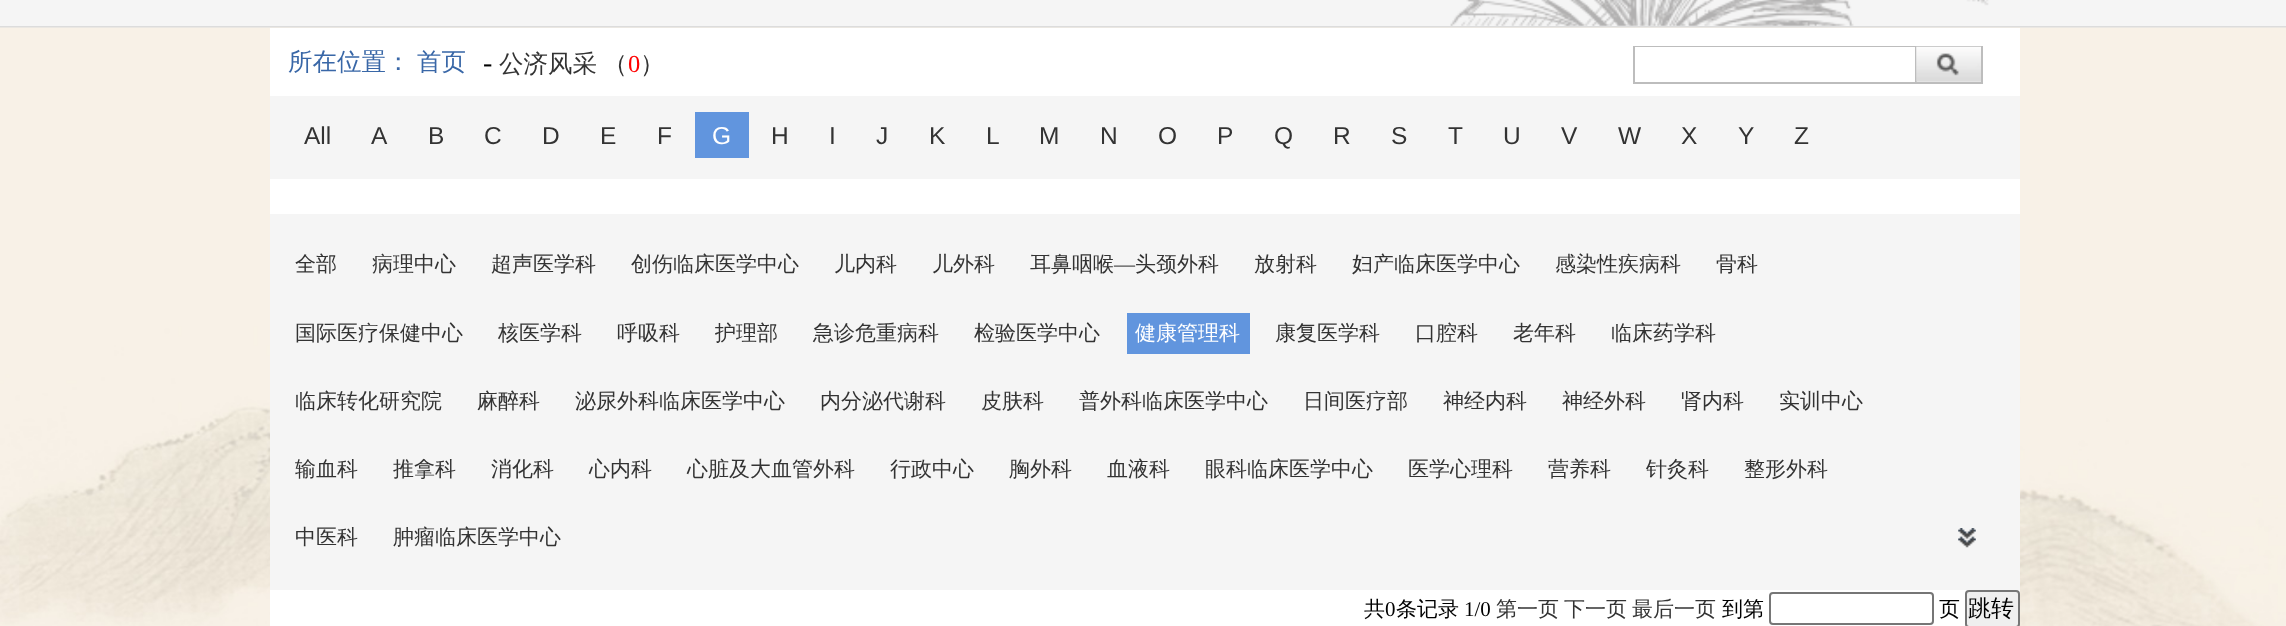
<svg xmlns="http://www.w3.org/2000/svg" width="2286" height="626">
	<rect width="100%" height="100%" fill="#F5F5F5" />
	<rect x="0" y="26" width="2286" height="2" fill="#DCDCDC" />
	<image x="1450" y="0" width="539" height="26" href="assets/img1.png" />
	<image x="0" y="27" width="2286" height="599" href="assets/img2.png" />
	<rect x="270" y="28" width="1750" height="598" fill="#FFFFFF" />
	<g font-family="WenQuanYi Zen Hei" font-size="24.5" font-weight="500" fill="#3967A7">
		<text x="288" y="70">所在位置：</text>
		<text x="417" y="70">首页</text>
	</g>
	<text x="483" y="72" font-family="Liberation Serif" font-size="28" fill="#000000">-</text>
	<g font-family="WenQuanYi Zen Hei" font-size="24.5" font-weight="500" fill="#333333">
		<text x="499" y="72">公济风采</text>
		<text x="603" y="72">（</text>
	</g>
	<text x="628" y="72" font-family="Liberation Serif" font-size="24.5" fill="#FF0000">0</text>
	<text x="640" y="72" font-family="WenQuanYi Zen Hei" font-size="24.5" font-weight="500" fill="#333333">）</text>
	<rect x="1634" y="47" width="348" height="36" fill="none" stroke="#BDBDBD" stroke-width="2" />
	<rect x="1635" y="47" width="280" height="1" fill="#FFFFFF" />
	<rect x="1915" y="47" width="2" height="35" fill="#BDBDBD" />
	<image x="1916" y="46" width="65" height="36" href="assets/img3.png" />
	<rect x="270" y="96" width="1750" height="83" fill="#F5F5F5" />
	<g font-family="Liberation Sans" font-size="24.5" fill="#333333">
		<text x="304" y="144">All</text>
		<text x="371" y="144">A</text>
		<text x="428" y="144">B</text>
		<text x="484" y="144">C</text>
		<text x="542" y="144">D</text>
		<text x="600" y="144">E</text>
		<text x="657" y="144">F</text>
	</g>
	<rect x="695" y="112" width="54" height="46" fill="#6195DE" />
	<text x="712" y="144" font-family="Liberation Sans" font-size="24.5" fill="#FFFFFF">G</text>
	<g font-family="Liberation Sans" font-size="24.5" fill="#333333">
		<text x="771" y="144">H</text>
		<text x="829" y="144">I</text>
		<text x="876" y="144">J</text>
		<text x="929" y="144">K</text>
		<text x="986" y="144">L</text>
		<text x="1039" y="144">M</text>
		<text x="1100" y="144">N</text>
		<text x="1158" y="144">O</text>
		<text x="1217" y="144">P</text>
		<text x="1274" y="144">Q</text>
		<text x="1333" y="144">R</text>
		<text x="1391" y="144">S</text>
		<text x="1448" y="144">T</text>
		<text x="1503" y="144">U</text>
		<text x="1561" y="144">V</text>
		<text x="1618" y="144">W</text>
		<text x="1681" y="144">X</text>
		<text x="1738" y="144">Y</text>
		<text x="1794" y="144">Z</text>
	</g>
	<rect x="270" y="214" width="1750" height="376" fill="#F5F5F5" />
	<g font-family="WenQuanYi Zen Hei" font-size="21" font-weight="500" fill="#333333">
		<text x="295" y="271">全部</text>
		<text x="372" y="271">病理中心</text>
		<text x="491" y="271">超声医学科</text>
		<text x="631" y="271">创伤临床医学中心</text>
		<text x="834" y="271">儿内科</text>
		<text x="932" y="271">儿外科</text>
		<text x="1030" y="271">耳鼻咽喉</text>
	</g>
	<text x="1114" y="271" font-family="Liberation Serif" font-size="21" fill="#333333">—</text>
	<g font-family="WenQuanYi Zen Hei" font-size="21" font-weight="500" fill="#333333">
		<text x="1135" y="271">头颈外科</text>
		<text x="1254" y="271">放射科</text>
		<text x="1352" y="271">妇产临床医学中心</text>
		<text x="1555" y="271">感染性疾病科</text>
		<text x="1716" y="271">骨科</text>
		<text x="295" y="340">国际医疗保健中心</text>
		<text x="498" y="340">核医学科</text>
		<text x="617" y="340">呼吸科</text>
		<text x="715" y="340">护理部</text>
		<text x="813" y="340">急诊危重病科</text>
		<text x="974" y="340">检验医学中心</text>
	</g>
	<rect x="1127" y="313" width="123" height="41" fill="#6195DE" />
	<text x="1135" y="340" font-family="WenQuanYi Zen Hei" font-size="21" font-weight="500" fill="#FFFFFF">健康管理科</text>
	<g font-family="WenQuanYi Zen Hei" font-size="21" font-weight="500" fill="#333333">
		<text x="1275" y="340">康复医学科</text>
		<text x="1415" y="340">口腔科</text>
		<text x="1513" y="340">老年科</text>
		<text x="1611" y="340">临床药学科</text>
		<text x="295" y="408">临床转化研究院</text>
		<text x="477" y="408">麻醉科</text>
		<text x="575" y="408">泌尿外科临床医学中心</text>
		<text x="820" y="408">内分泌代谢科</text>
		<text x="981" y="408">皮肤科</text>
		<text x="1079" y="408">普外科临床医学中心</text>
		<text x="1303" y="408">日间医疗部</text>
		<text x="1443" y="408">神经内科</text>
		<text x="1562" y="408">神经外科</text>
		<text x="1681" y="408">肾内科</text>
		<text x="1779" y="408">实训中心</text>
		<text x="295" y="476">输血科</text>
		<text x="393" y="476">推拿科</text>
		<text x="491" y="476">消化科</text>
		<text x="589" y="476">心内科</text>
		<text x="687" y="476">心脏及大血管外科</text>
		<text x="890" y="476">行政中心</text>
		<text x="1009" y="476">胸外科</text>
		<text x="1107" y="476">血液科</text>
		<text x="1205" y="476">眼科临床医学中心</text>
		<text x="1408" y="476">医学心理科</text>
		<text x="1548" y="476">营养科</text>
		<text x="1646" y="476">针灸科</text>
		<text x="1744" y="476">整形外科</text>
		<text x="295" y="544">中医科</text>
		<text x="393" y="544">肿瘤临床医学中心</text>
	</g>
	<image x="1958" y="528" width="18" height="20" href="assets/img4.png" />
	<text x="1364" y="616" font-family="WenQuanYi Zen Hei" font-size="21" font-weight="500" fill="#000000">共</text>
	<text x="1385" y="616" font-family="Liberation Serif" font-size="21" fill="#000000">0</text>
	<text x="1396" y="616" font-family="WenQuanYi Zen Hei" font-size="21" font-weight="500" fill="#000000">条记录</text>
	<text x="1464" y="616" font-family="Liberation Serif" font-size="21" fill="#000000">1/0</text>
	<g font-family="WenQuanYi Zen Hei" font-size="21" font-weight="500" fill="#333333">
		<text x="1496" y="616">第一页</text>
		<text x="1564" y="616">下一页</text>
		<text x="1632" y="616">最后一页</text>
	</g>
	<text x="1722" y="616" font-family="WenQuanYi Zen Hei" font-size="21" font-weight="500" fill="#000000">到第</text>
	<rect x="1770" y="593" width="163" height="31" rx="3" fill="none" stroke="#767676" stroke-width="2" />
	<text x="1939" y="616" font-family="WenQuanYi Zen Hei" font-size="21" font-weight="500" fill="#000000">页</text>
	<rect x="1966" y="591" width="53" height="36" rx="3" fill="#EFEFEF" stroke="#767676" stroke-width="2" />
	<text x="1968" y="616" font-family="WenQuanYi Zen Hei" font-size="23" font-weight="500" fill="#000000">跳转</text>
</svg>
